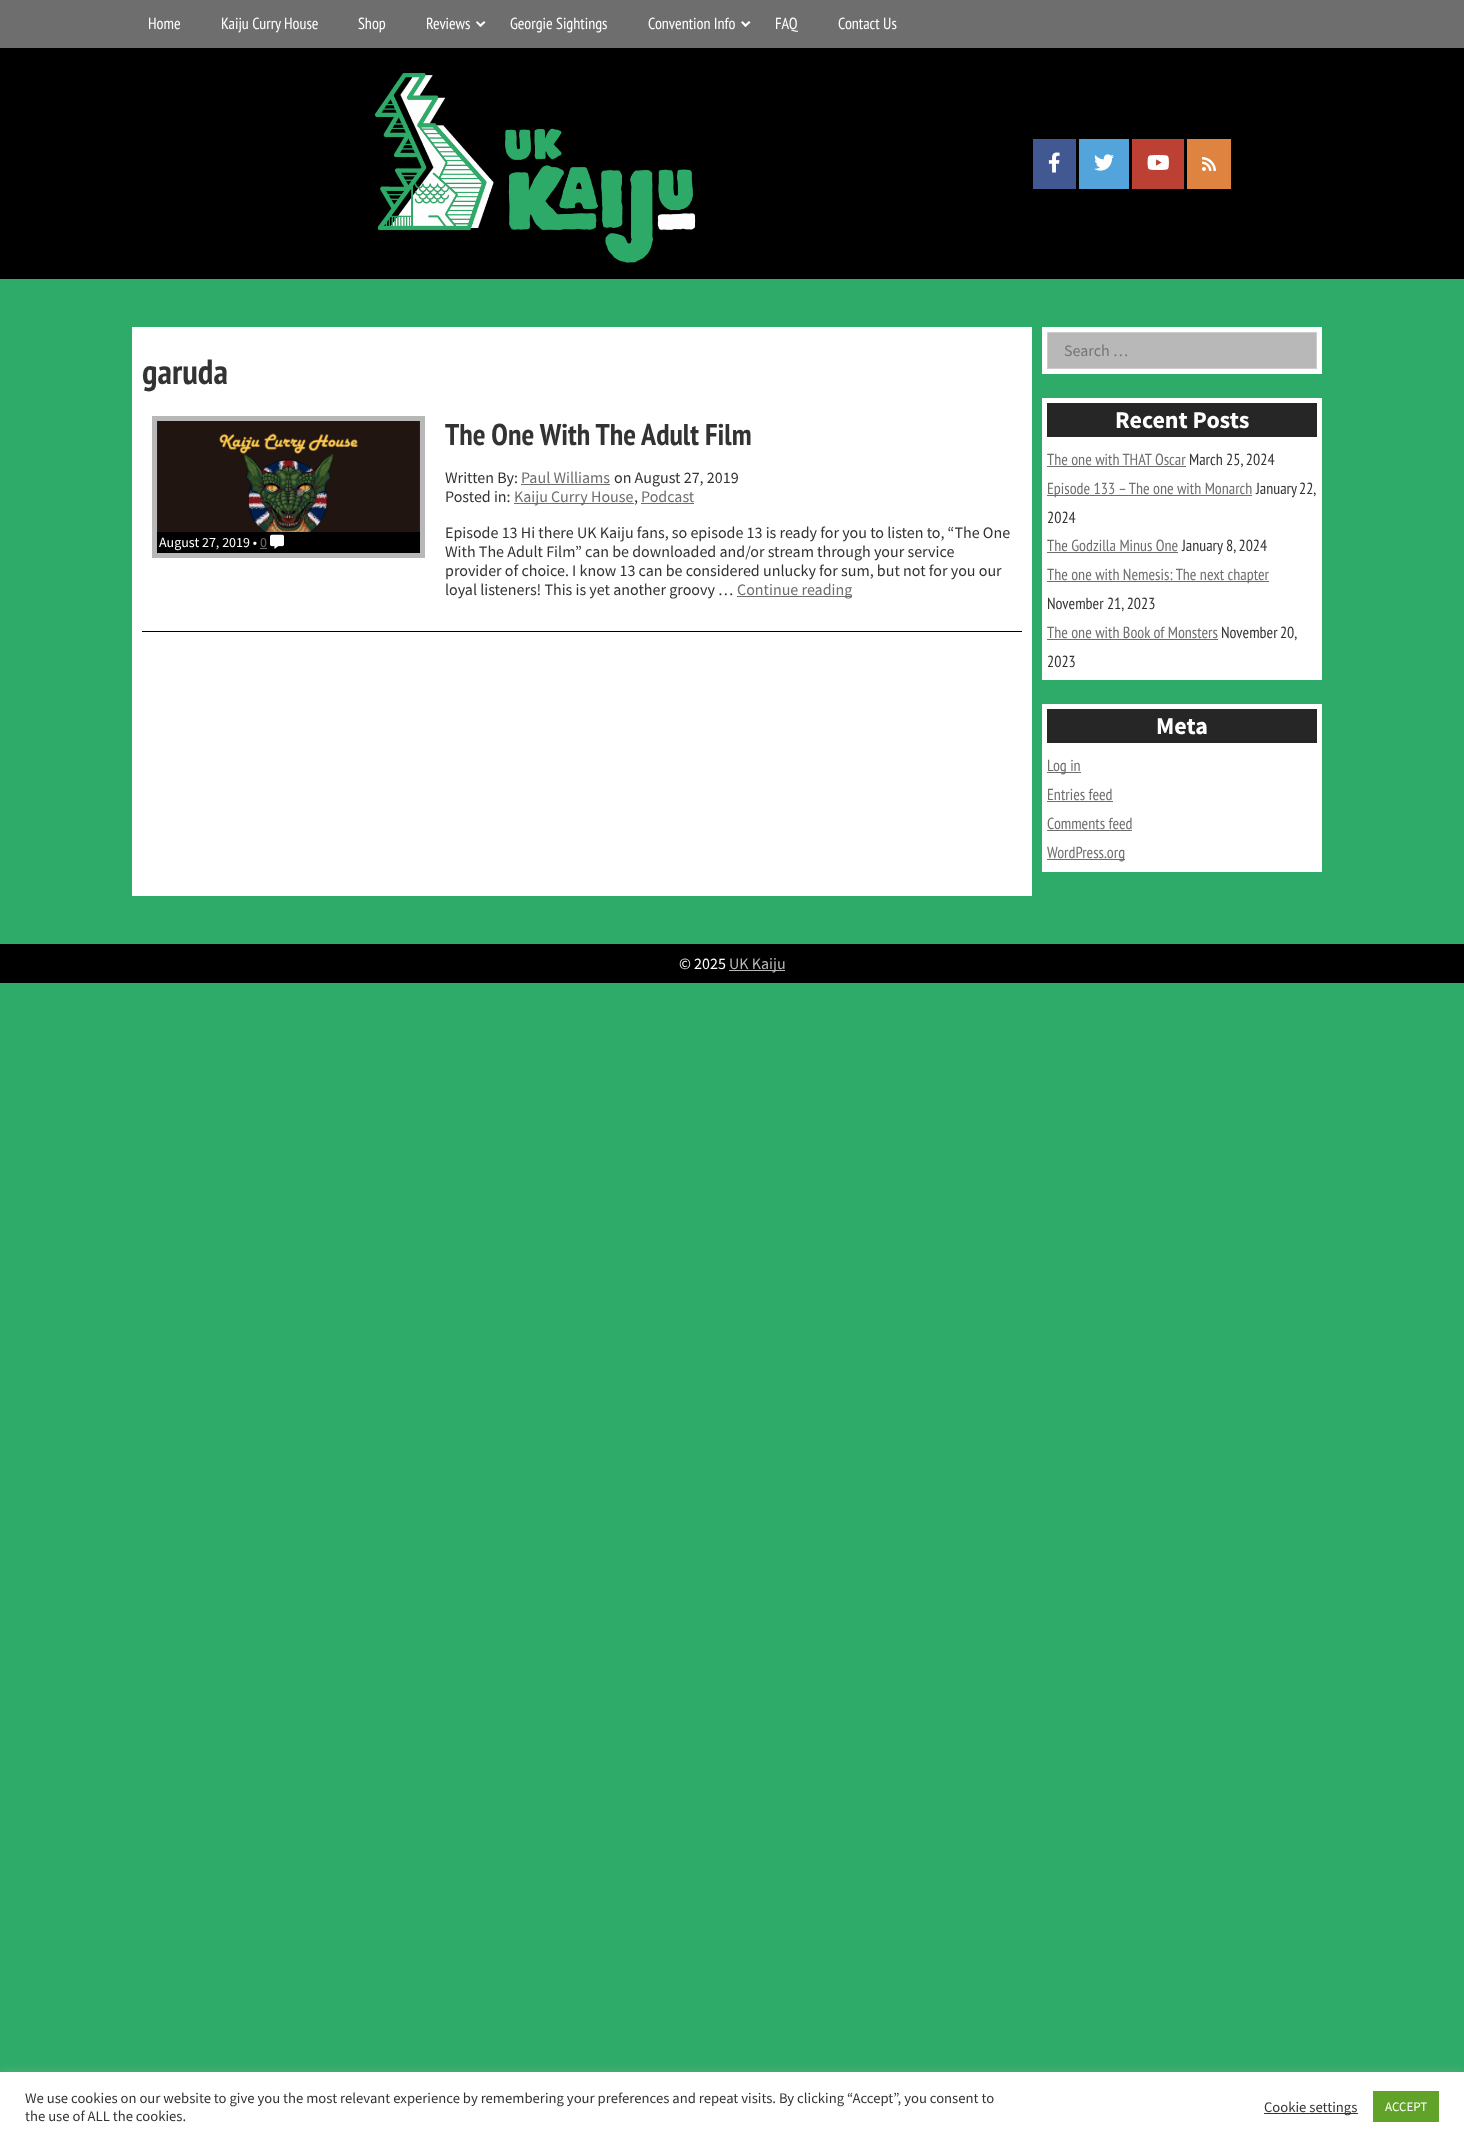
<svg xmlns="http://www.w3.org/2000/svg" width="1464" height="2141">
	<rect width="100%" height="100%" fill="#2EAB68" />
	<rect x="0" y="48" width="1464" height="231" fill="#000000" />
	<rect x="0" y="0" width="1464" height="48" fill="#6E6E6E" />
	<g font-family="PT Sans Narrow" font-size="16" fill="#FFFFFF">
		<text x="148" y="29">Home</text>
		<text x="221" y="29">Kaiju Curry House</text>
		<text x="358" y="29">Shop</text>
		<text x="426" y="29">Reviews</text>
	</g>
	<path d="M484 21L485.5 22.5L480.5 27L479 25.5Z" fill="#FFFFFF" />
	<path d="M477 21L482 25.5L480.5 27L476 22.5Z" fill="#FFFFFF" />
	<g font-family="PT Sans Narrow" font-size="16" fill="#FFFFFF">
		<text x="510" y="29">Georgie Sightings</text>
		<text x="648" y="29">Convention Info</text>
	</g>
	<path d="M749 21L750.5 22.5L745.5 27L744 25.5Z" fill="#FFFFFF" />
	<path d="M742.5 21L747 25.5L745.5 27L741 22.5Z" fill="#FFFFFF" />
	<g font-family="PT Sans Narrow" font-size="16" fill="#FFFFFF">
		<text x="775" y="29">FAQ</text>
		<text x="838" y="29">Contact Us</text>
	</g>
	<image x="374" y="73" width="322" height="190" href="assets/img1.png" />
	<rect x="1033" y="139" width="43" height="50" fill="#415893" />
	<image x="1048" y="152" width="12" height="21" href="assets/img2.png" />
	<rect x="1079" y="139" width="50" height="50" fill="#53A4DA" />
	<image x="1094" y="154" width="20" height="17" href="assets/img3.png" />
	<rect x="1132" y="139" width="52" height="50" fill="#BC4034" />
	<image x="1147" y="155" width="22" height="15" href="assets/img4.png" />
	<rect x="1187" y="139" width="44" height="50" fill="#DE8440" />
	<image x="1202" y="157" width="14" height="14" href="assets/img5.png" />
	<rect x="132" y="327" width="900" height="569" fill="#FFFFFF" />
	<text x="142" y="384" font-family="PT Sans Narrow" font-size="35" font-weight="700" fill="#333333">garuda</text>
	<rect x="142" y="631" width="880" height="1" fill="#000000" />
	<rect x="154.5" y="418.5" width="268" height="137" fill="none" stroke="#B8B8B8" stroke-width="5" />
	<image x="157" y="421" width="263" height="111" href="assets/img6.png" />
	<rect x="157" y="532" width="263" height="21" fill="#000000" />
	<text x="159" y="547" font-family="Source Sans Pro" font-size="14" fill="#FFFFFF">August 27, 2019 •</text>
	<text x="260" y="547" font-family="Source Sans Pro" font-size="14" fill="#6E6E6E">0</text>
	<rect x="260" y="548" width="7" height="1" fill="#6E6E6E" />
	<image x="270" y="534" width="14" height="15" href="assets/img7.png" />
	<text x="445" y="445" font-family="PT Sans Narrow" font-size="30" font-weight="700" fill="#333333">The One With The Adult Film</text>
	<text x="445" y="483" font-family="Source Sans Pro" font-size="16" fill="#333333">Written By:</text>
	<text x="521" y="483" font-family="Source Sans Pro" font-size="16" fill="#6E6E6E">Paul Williams</text>
	<rect x="521" y="484" width="89" height="1" fill="#6E6E6E" />
	<g font-family="Source Sans Pro" font-size="16" fill="#333333">
		<text x="614" y="483">on August 27, 2019</text>
		<text x="445" y="502">Posted in:</text>
	</g>
	<rect x="514" y="503" width="120" height="1" fill="#6E6E6E" />
	<text x="514" y="502" font-family="Source Sans Pro" font-size="16" fill="#6E6E6E">Kaiju Curry House</text>
	<text x="634" y="502" font-family="Source Sans Pro" font-size="16" fill="#333333">,</text>
	<text x="641" y="502" font-family="Source Sans Pro" font-size="16" fill="#6E6E6E">Podcast</text>
	<rect x="641" y="503" width="53" height="1" fill="#6E6E6E" />
	<g font-family="Source Sans Pro" font-size="16" fill="#333333">
		<text x="445" y="538">Episode 13 Hi there UK Kaiju fans, so episode 13 is ready for you to listen to, “The One</text>
		<text x="445" y="557">With The Adult Film” can be downloaded and/or stream through your service</text>
		<text x="445" y="576">provider of choice. I know 13 can be considered unlucky for sum, but not for you our</text>
		<text x="445" y="595">loyal listeners! This is yet another groovy …</text>
	</g>
	<rect x="737" y="596" width="115" height="1" fill="#6E6E6E" />
	<text x="737" y="595" font-family="Source Sans Pro" font-size="16" fill="#6E6E6E">Continue reading</text>
	<rect x="1042" y="327" width="280" height="47" fill="#FFFFFF" />
	<rect x="1047.5" y="332.5" width="269" height="36" fill="#B8B8B8" stroke="#CCCCCC" />
	<text x="1064" y="356" font-family="Source Sans Pro" font-size="16" fill="#757575">Search …</text>
	<rect x="1042" y="398" width="280" height="282" fill="#FFFFFF" />
	<rect x="1047" y="403" width="270" height="34" fill="#262626" />
	<text x="1115" y="428" font-family="Source Sans Pro" font-size="24" font-weight="700" fill="#FFFFFF">Recent Posts</text>
	<text x="1047" y="465" font-family="PT Sans Narrow" font-size="16" fill="#6E6E6E">The one with THAT Oscar</text>
	<rect x="1047" y="466" width="139" height="1" fill="#6E6E6E" />
	<text x="1189" y="465" font-family="PT Sans Narrow" font-size="16" fill="#333333">March 25, 2024</text>
	<rect x="1047" y="495" width="205" height="1" fill="#6E6E6E" />
	<text x="1047" y="494" font-family="PT Sans Narrow" font-size="16" fill="#6E6E6E">Episode 133 – The one with Monarch</text>
	<g font-family="PT Sans Narrow" font-size="16" fill="#333333">
		<text x="1256" y="494" word-spacing="-1">January 22,</text>
		<text x="1047" y="523">2024</text>
	</g>
	<text x="1047" y="551" font-family="PT Sans Narrow" font-size="16" fill="#6E6E6E">The Godzilla Minus One</text>
	<rect x="1047" y="552" width="131" height="1" fill="#6E6E6E" />
	<text x="1182" y="551" font-family="PT Sans Narrow" font-size="16" fill="#333333">January 8, 2024</text>
	<rect x="1047" y="581" width="222" height="1" fill="#6E6E6E" />
	<text x="1047" y="580" font-family="PT Sans Narrow" font-size="16" fill="#6E6E6E">The one with Nemesis: The next chapter</text>
	<text x="1047" y="609" font-family="PT Sans Narrow" font-size="16" fill="#333333">November 21, 2023</text>
	<text x="1047" y="638" font-family="PT Sans Narrow" font-size="16" fill="#6E6E6E">The one with Book of Monsters</text>
	<rect x="1047" y="639" width="171" height="1" fill="#6E6E6E" />
	<g font-family="PT Sans Narrow" font-size="16" fill="#333333">
		<text x="1221" y="638" word-spacing="-1">November 20,</text>
		<text x="1047" y="667">2023</text>
	</g>
	<rect x="1042" y="704" width="280" height="168" fill="#FFFFFF" />
	<rect x="1047" y="709" width="270" height="34" fill="#262626" />
	<text x="1156" y="734" font-family="Source Sans Pro" font-size="24" font-weight="700" fill="#FFFFFF">Meta</text>
	<rect x="1047" y="772" width="34" height="1" fill="#6E6E6E" />
	<g font-family="PT Sans Narrow" font-size="16" fill="#6E6E6E">
		<text x="1047" y="771">Log in</text>
		<text x="1047" y="800">Entries feed</text>
	</g>
	<rect x="1047" y="801" width="66" height="1" fill="#6E6E6E" />
	<text x="1047" y="829" font-family="PT Sans Narrow" font-size="16" fill="#6E6E6E">Comments feed</text>
	<rect x="1047" y="830" width="85" height="1" fill="#6E6E6E" />
	<rect x="1047" y="859" width="78" height="1" fill="#6E6E6E" />
	<text x="1047" y="858" font-family="PT Sans Narrow" font-size="16" fill="#6E6E6E">WordPress.org</text>
	<rect x="0" y="944" width="1464" height="39" fill="#000000" />
	<text x="679" y="969" font-family="Source Sans Pro" font-size="16" fill="#FFFFFF">© 2025</text>
	<rect x="729" y="970" width="56" height="1" fill="#B8B8B8" />
	<text x="729" y="969" font-family="Source Sans Pro" font-size="16" fill="#B8B8B8">UK Kaiju</text>
	<rect x="0" y="2071" width="1464" height="69" fill="#ACABAB" fill-opacity="0.3" filter="blur(5px)" />
	<rect x="0" y="2072" width="1464" height="69" fill="#FFFFFF" />
	<g font-family="Source Sans Pro" font-size="14.67" fill="#333333">
		<text x="25" y="2103">We use cookies on our website to give you the most relevant experience by remembering your preferences and repeat visits. By clicking “Accept”, you consent to</text>
		<text x="25" y="2121">the use of ALL the cookies.</text>
	</g>
	<rect x="1264" y="2113" width="94" height="1" fill="#333333" />
	<text x="1264" y="2112" font-family="Source Sans Pro" font-size="14.67" fill="#333333">Cookie settings</text>
	<rect x="1373" y="2091" width="66" height="31" fill="#61A229" />
	<text x="1385" y="2111" font-family="Source Sans Pro" font-size="13" fill="#FFFFFF">ACCEPT</text>
</svg>
